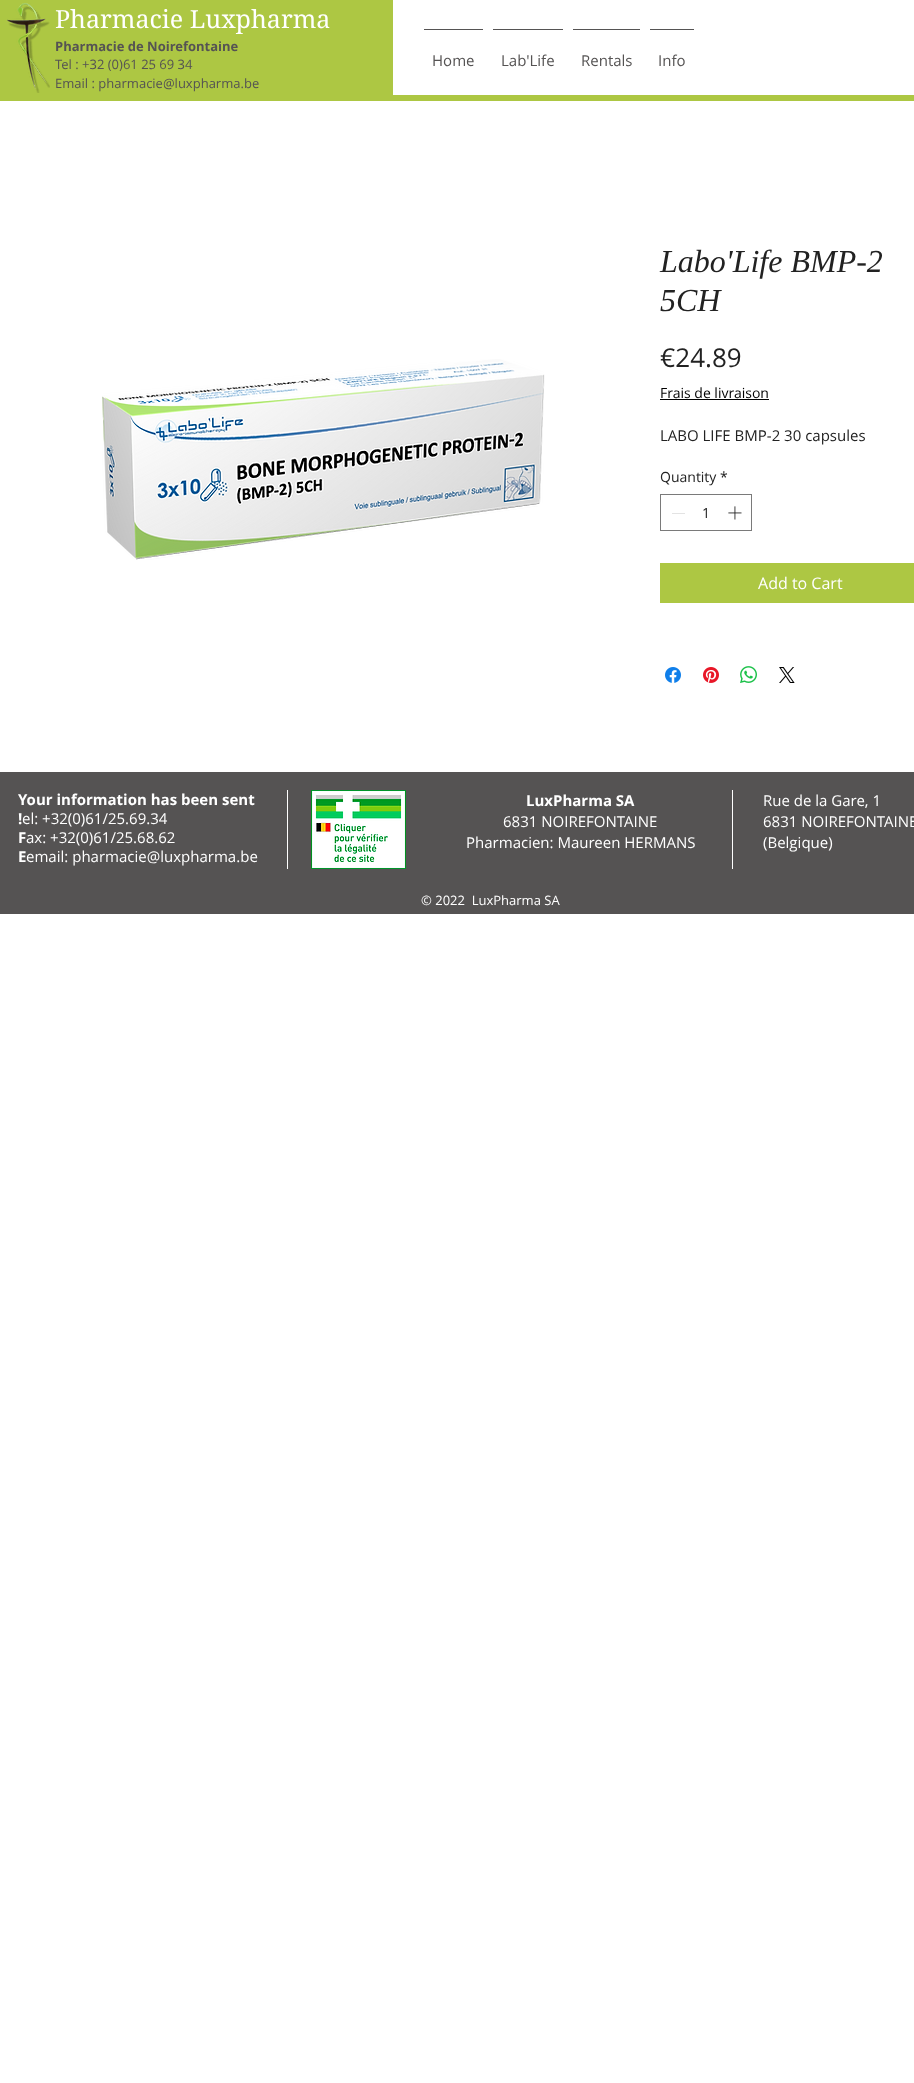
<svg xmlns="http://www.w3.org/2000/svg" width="914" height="2083">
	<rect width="100%" height="100%" fill="#FFFFFF" />
	<rect x="0" y="0" width="393" height="95" fill="#ADC743" />
	<image x="7" y="3" width="43" height="90" href="assets/img1.png" />
	<text x="55" y="28" font-family="'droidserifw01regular'" font-size="25" fill="#FFFFFF">Pharmacie Luxpharma</text>
	<text x="55" y="51" font-family="Open Sans" font-size="13" font-weight="700" fill="#555353">Pharmacie de Noirefontaine</text>
	<g font-family="Open Sans" font-size="13" fill="#555353">
		<text x="55" y="69">Tel : +32 (0)61 25 69 34</text>
		<text x="55" y="88">Email : pharmacie@luxpharma.be</text>
	</g>
	<rect x="424" y="29" width="59" height="1" fill="#555353" />
	<text x="432" y="66" font-family="Open Sans" font-size="15" fill="#555353">Home</text>
	<rect x="493" y="29" width="70" height="1" fill="#555353" />
	<text x="501" y="66" font-family="Open Sans" font-size="15" fill="#555353">Lab'Life</text>
	<rect x="573" y="29" width="67" height="1" fill="#555353" />
	<text x="581" y="66" font-family="Open Sans" font-size="15" fill="#555353">Rentals</text>
	<rect x="650" y="29" width="44" height="1" fill="#555353" />
	<text x="658" y="66" font-family="Open Sans" font-size="15" fill="#555353">Info</text>
	<rect x="0" y="95" width="914" height="6" fill="#ADC743" />
	<image x="102" y="359" width="443" height="201" href="assets/img2.png" />
	<g font-family="Liberation Serif" font-size="32" font-style="italic" fill="#222222">
		<text x="660" y="272">Labo'Life BMP-2</text>
		<text x="660" y="311">5CH</text>
	</g>
	<text x="660" y="367" font-family="Open Sans" font-size="26" fill="#222222">€24.89</text>
	<text x="660" y="398" font-family="Open Sans" font-size="14" fill="#000000">Frais de livraison</text>
	<rect x="660" y="399" width="109" height="1" fill="#000000" />
	<text x="660" y="441" font-family="Open Sans" font-size="15" fill="#222222">LABO LIFE BMP-2 30 capsules</text>
	<g font-family="Open Sans" font-size="14" fill="#222222">
		<text x="660" y="482">Quantity</text>
		<text x="720" y="482">*</text>
	</g>
	<rect x="660.5" y="494.5" width="91" height="36" fill="none" stroke="#7A7A7A" />
	<rect x="672" y="513" width="13" height="1" fill="#E3E3E3" />
	<text x="702" y="518" font-family="Open Sans" font-size="14" fill="#222222">1</text>
	<image x="728" y="506" width="14" height="14" href="assets/img3.png" />
	<rect x="660" y="563" width="254" height="40" fill="#ADC743" />
	<text x="758" y="589" font-family="Open Sans" font-size="16" fill="#FFFFFF">Add to Cart</text>
	<image x="665" y="667" width="16" height="16" href="assets/img4.png" />
	<image x="703" y="667" width="16" height="16" href="assets/img5.png" />
	<image x="740" y="666" width="17" height="17" href="assets/img6.png" />
	<image x="779" y="667" width="16" height="16" href="assets/img7.png" />
	<rect x="0" y="772" width="914" height="142" fill="#555353" />
	<g font-family="Open Sans" font-size="15" font-weight="700" fill="#FFFFFF">
		<text x="18" y="805">Your information has been sent</text>
		<text x="18" y="824">!</text>
	</g>
	<text x="22" y="824" font-family="Open Sans" font-size="15" fill="#FFFFFF">el: +32(0)61/25.69.34</text>
	<text x="18" y="843" font-family="Open Sans" font-size="15" font-weight="700" fill="#FFFFFF">F</text>
	<text x="26" y="843" font-family="Open Sans" font-size="15" fill="#FFFFFF">ax: +32(0)61/25.68.62</text>
	<text x="18" y="862" font-family="Open Sans" font-size="15" font-weight="700" fill="#FFFFFF">E</text>
	<text x="26" y="862" font-family="Open Sans" font-size="15" fill="#FFFFFF">email: pharmacie@luxpharma.be</text>
	<rect x="287" y="790" width="1" height="79" fill="#FFFFFF" />
	<image x="311" y="790" width="95" height="79" href="assets/img8.png" />
	<text x="526" y="806" font-family="Open Sans" font-size="15" font-weight="700" fill="#FFFFFF">LuxPharma SA</text>
	<g font-family="Open Sans" font-size="15" fill="#FFFFFF">
		<text x="503" y="827">6831 NOIREFONTAINE</text>
		<text x="466" y="848">Pharmacien: Maureen HERMANS</text>
	</g>
	<rect x="732" y="790" width="1" height="79" fill="#FFFFFF" />
	<g font-family="Open Sans" font-size="15" fill="#FFFFFF">
		<text x="763" y="806">Rue de la Gare, 1</text>
		<text x="763" y="827">6831 NOIREFONTAINE</text>
		<text x="763" y="848">(Belgique)</text>
	</g>
	<text x="421" y="905" font-family="Open Sans" font-size="13" fill="#FFFFFF" xml:space="preserve">© 2022  LuxPharma SA</text>
</svg>
